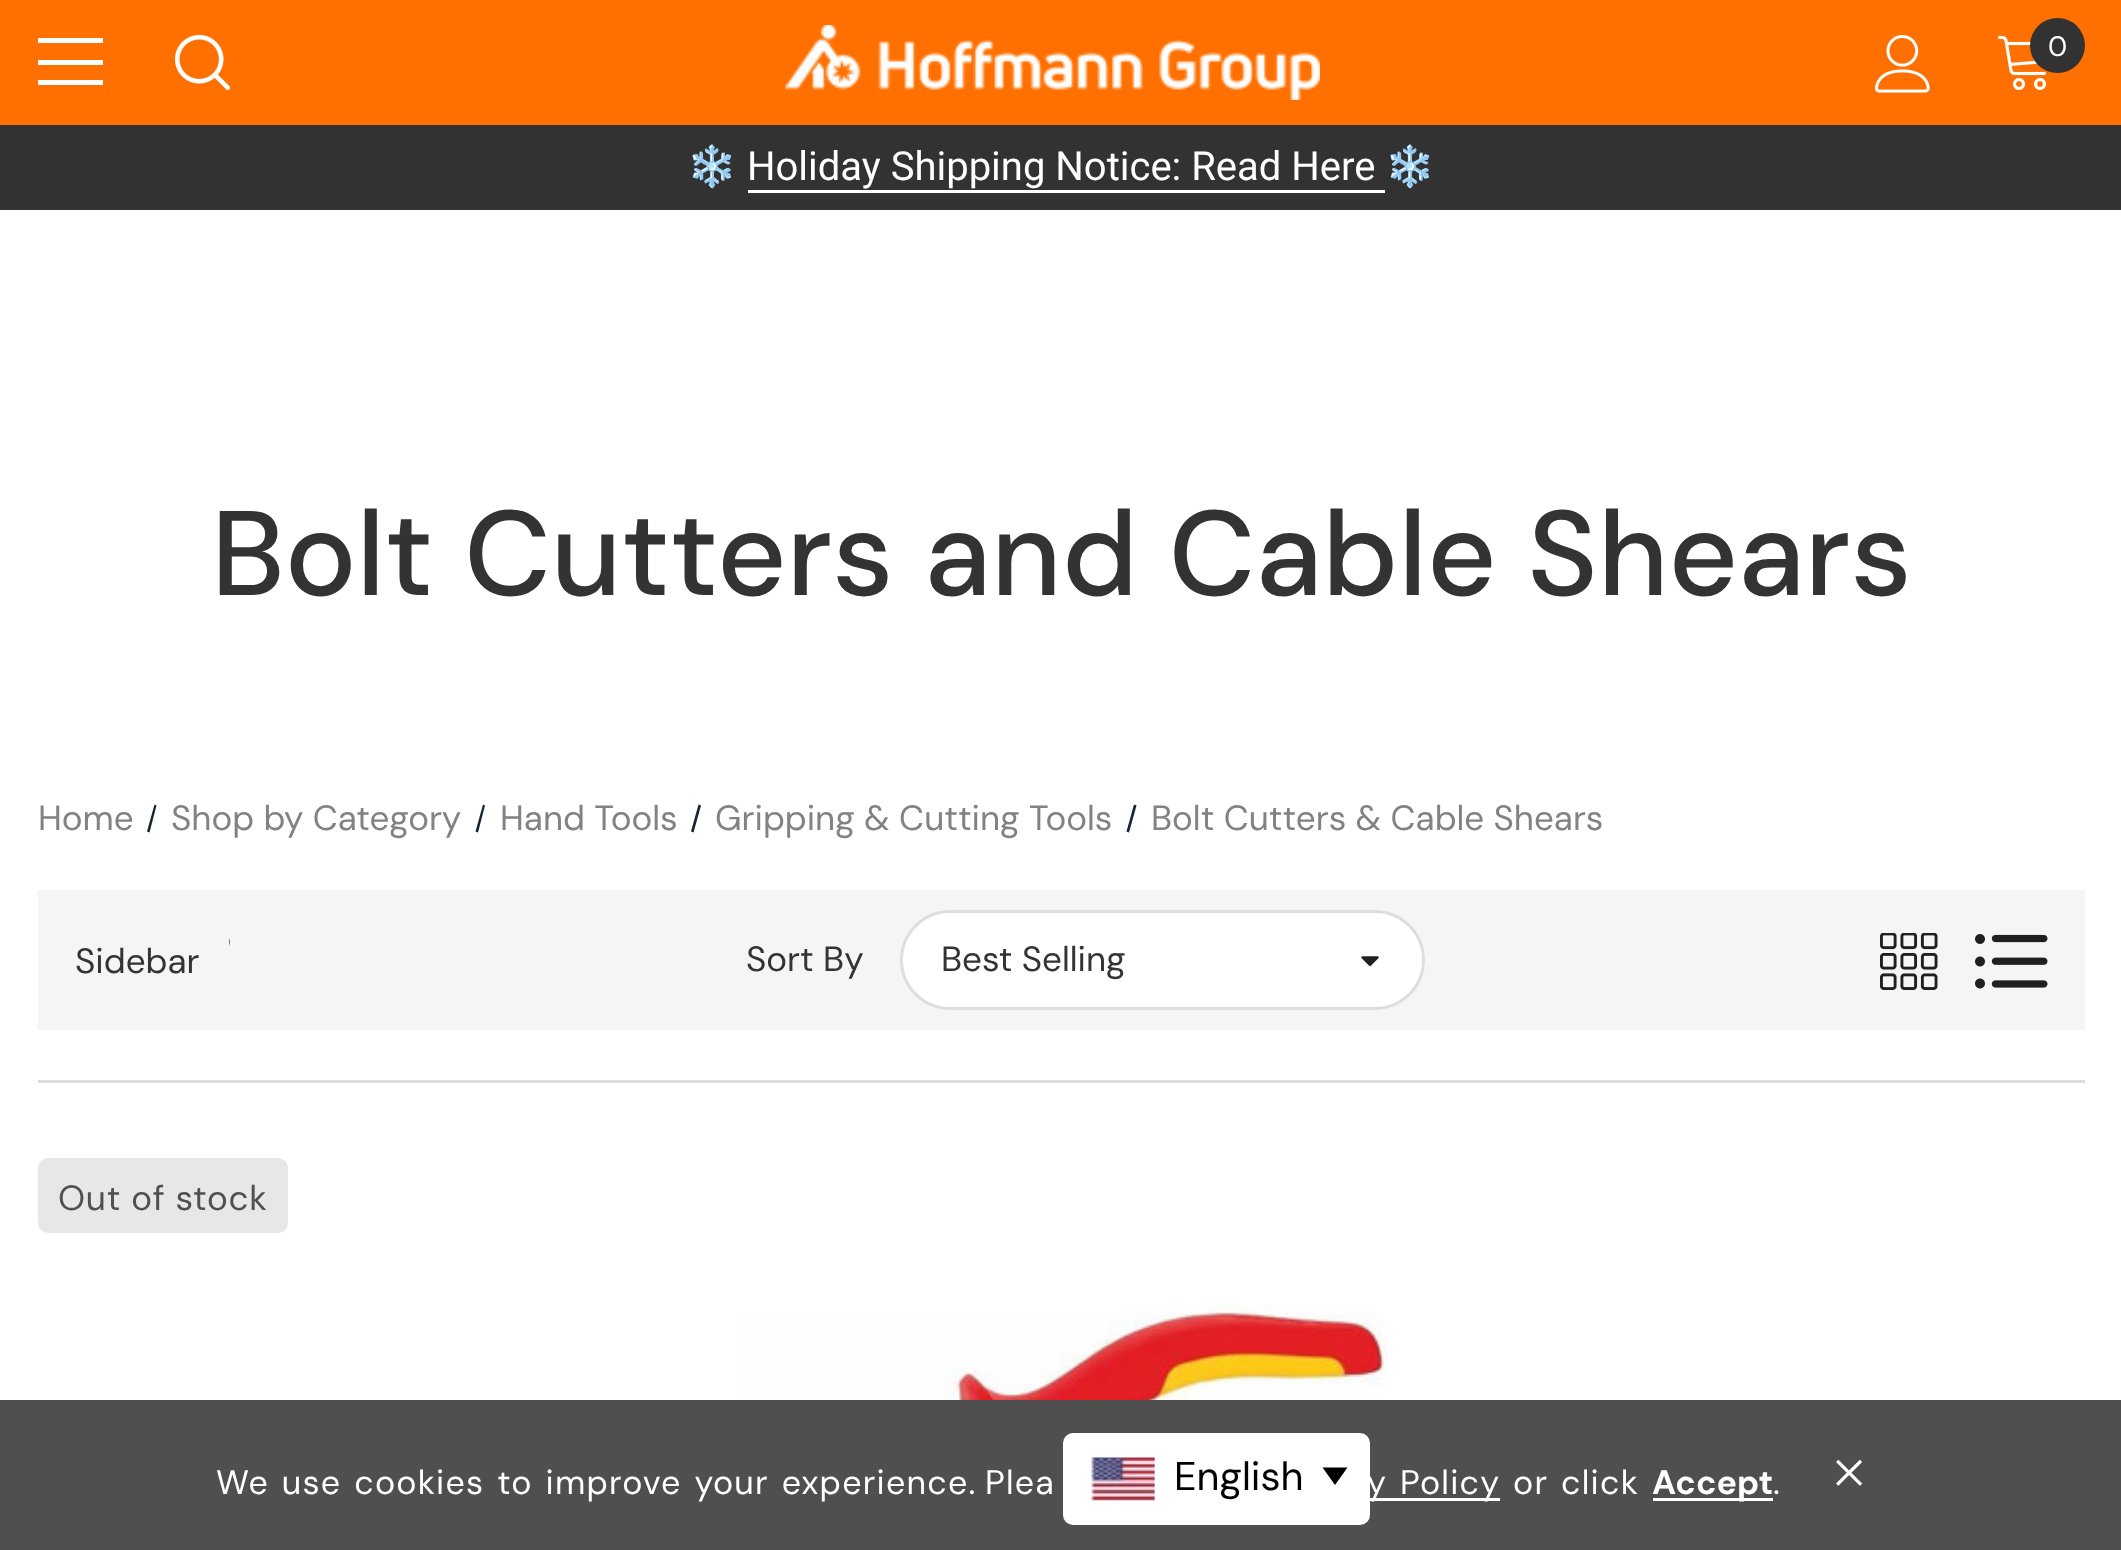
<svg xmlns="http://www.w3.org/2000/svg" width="2121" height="1550">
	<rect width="100%" height="100%" fill="#FFFFFF" />
	<rect x="0" y="0" width="2121" height="125" fill="#FF7000" />
	<rect x="38" y="60" width="65" height="5" fill="#FFFFFF" />
	<rect x="38" y="38" width="65" height="5" fill="#FFFFFF" />
	<rect x="38" y="80" width="65" height="5" fill="#FFFFFF" />
	<image x="175" y="35" width="55" height="55" href="assets/img1.png" />
	<image x="785" y="25" width="535" height="75" href="assets/img2.png" />
	<image x="1875" y="35" width="55" height="58" href="assets/img3.png" />
	<image x="1998" y="35" width="48" height="55" href="assets/img4.png" />
	<circle cx="2057.5" cy="45.5" r="27.5" fill="#323232" />
	<text x="2048" y="56" font-family="DM Sans" font-size="28" fill="#FFFFFF">0</text>
	<rect x="0" y="125" width="2121" height="85" fill="#323232" />
	<text x="687" y="180" font-family="Noto Color Emoji" font-size="40" fill="#FFFFFF">❄️</text>
	<text x="747" y="180" font-family="Roboto" font-size="40" fill="#FFFFFF">Holiday Shipping Notice: Read Here</text>
	<rect x="748" y="190" width="637" height="3" fill="#FFFFFF" />
	<text x="1385" y="180" font-family="Noto Color Emoji" font-size="40" fill="#FFFFFF">❄️</text>
	<text x="211" y="595" font-family="DM Sans" font-size="120" font-weight="500" fill="#333333">Bolt Cutters and Cable Shears</text>
	<rect x="38" y="1080" width="2047" height="3" fill="#DDDDDD" />
	<text x="38" y="830" font-family="DM Sans" font-size="35" fill="#828282">Home</text>
	<path d="M154.5 804.5L156.5 805.5L149.5 832.5L147 831.5Z" fill="#172532" />
	<text x="171" y="830" font-family="DM Sans" font-size="35" fill="#828282">Shop by Category</text>
	<path d="M483 804.5L485 805.5L478 832.5L475.5 831.5Z" fill="#172532" />
	<text x="500" y="830" font-family="DM Sans" font-size="35" fill="#828282">Hand Tools</text>
	<path d="M698.5 804.5L701 805.5L693.5 832.5L691 831.5Z" fill="#172532" />
	<text x="715" y="830" font-family="DM Sans" font-size="35" fill="#828282">Gripping &amp; Cutting Tools</text>
	<path d="M1134 804.5L1136.5 805.5L1129 832.5L1126.5 831.5Z" fill="#172532" />
	<text x="1151" y="830" font-family="DM Sans" font-size="35" fill="#828282">Bolt Cutters &amp; Cable Shears</text>
	<rect x="38" y="890" width="2047" height="140" fill="#F5F5F5" />
	<image x="229" y="938" width="1" height="8" href="assets/img5.png" />
	<g font-family="DM Sans" font-size="35" fill="#333333">
		<text x="75" y="973">Sidebar</text>
		<text x="746" y="971">Sort By</text>
	</g>
	<rect x="900" y="910" width="525" height="100" rx="50" fill="#FFFFFF" />
	<image x="1361" y="956" width="18" height="11" href="assets/img6.png" />
	<rect x="901.5" y="911.5" width="522" height="97" rx="48.5" fill="none" stroke="#DDDDDD" stroke-width="3" />
	<text x="941" y="971" font-family="DM Sans" font-size="35" fill="#333333">Best Selling</text>
	<image x="1880" y="933" width="58" height="57" href="assets/img7.png" />
	<image x="1975" y="934" width="73" height="55" href="assets/img8.png" />
	<rect x="39.5" y="1159.5" width="247" height="72" rx="8.5" fill="#E7E7E7" stroke="#E7E7E7" stroke-width="3" />
	<text x="58" y="1210" font-family="DM Sans" font-size="35" letter-spacing="0.75" fill="#505050">Out of stock</text>
	<image x="733" y="1299" width="655" height="101" href="assets/img9.png" />
	<rect x="0" y="1400" width="2121" height="150" fill="#4F4F4F" />
	<g font-family="DM Sans" font-size="34" letter-spacing="1.25" fill="#FFFFFF">
		<text x="216" y="1494" word-spacing="2.5">We use cookies to improve your experience.</text>
		<text x="985" y="1494" word-spacing="2.5">Plea</text>
	</g>
	<rect x="1370" y="1498" width="130" height="3" fill="#FFFFFF" />
	<g font-family="DM Sans" font-size="34" letter-spacing="1.25" fill="#FFFFFF">
		<text x="1367" y="1494" word-spacing="2.5">y Policy</text>
		<text x="1513" y="1494" word-spacing="2.5">or click</text>
	</g>
	<rect x="1653" y="1498" width="120" height="3" fill="#FFFFFF" />
	<text x="1652" y="1494" font-family="DM Sans" font-size="34" font-weight="700" fill="#FFFFFF">Accept</text>
	<text x="1773" y="1494" font-family="DM Sans" font-size="34" letter-spacing="1.25" fill="#FFFFFF">.</text>
	<text x="1831" y="1494" font-family="Liberation Serif" font-size="64" fill="#FFFFFF">×</text>
	<rect x="1063" y="1433" width="307" height="92" rx="10" fill="#FFFFFF" />
	<image x="1091" y="1457" width="64" height="44" href="assets/img10.png" />
	<text x="1174" y="1490" font-family="DM Sans" font-size="40" fill="#000000">English</text>
	<path d="M1322.5 1467.5H1347.5L1335 1485Z" fill="#000000" />
</svg>
